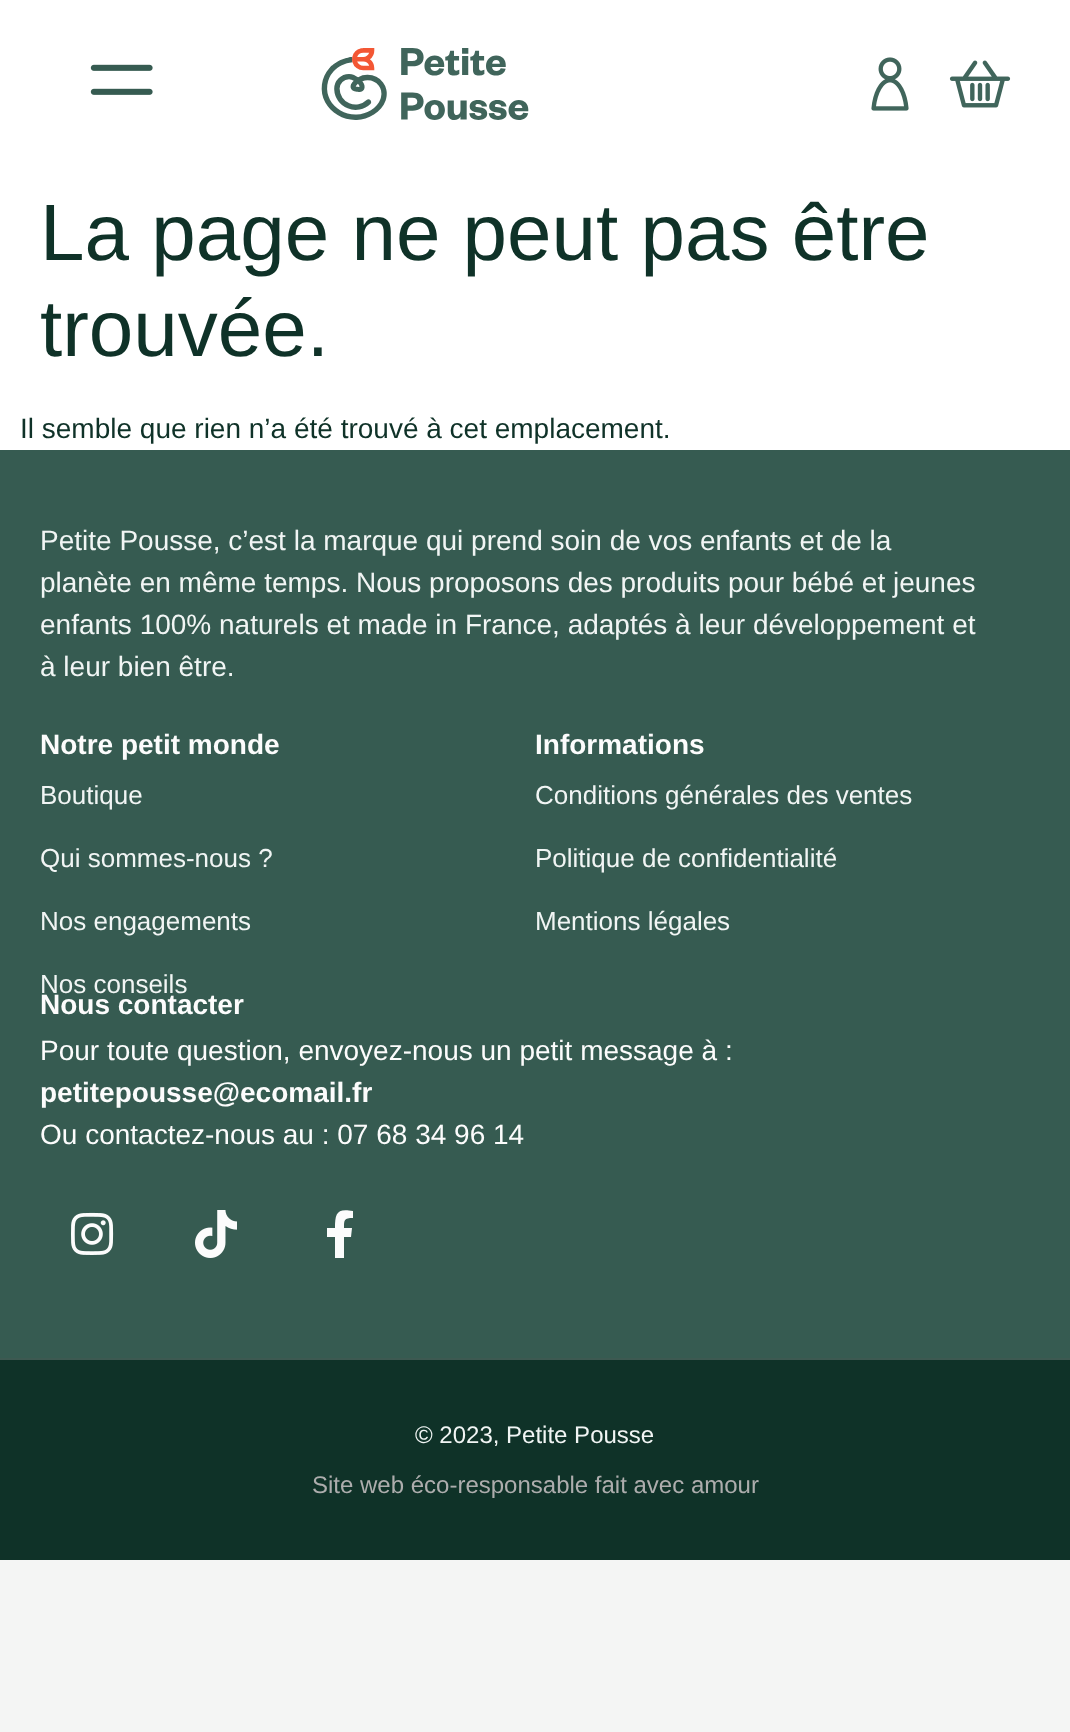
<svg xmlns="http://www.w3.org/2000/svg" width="1070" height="1732">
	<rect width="100%" height="100%" fill="#F4F5F4" />
	<rect x="0" y="0" width="1070" height="450" fill="#FFFFFF" />
	<image x="90" y="64" width="63" height="31" href="assets/img1.png" />
	<image x="321" y="48" width="208" height="72" href="assets/img2.png" />
	<image x="871" y="57" width="38" height="54" href="assets/img3.png" />
	<image x="949" y="60" width="62" height="48" href="assets/img4.png" />
	<g font-family="Liberation Sans" font-size="80" fill="#0F3228">
		<text x="40" y="260">La page ne peut pas être</text>
		<text x="40" y="356">trouvée.</text>
	</g>
	<text x="20" y="438" font-family="Liberation Sans" font-size="28" fill="#0F3228">Il semble que rien n’a été trouvé à cet emplacement.</text>
	<rect x="0" y="450" width="1070" height="908" fill="#365B51" />
	<g font-family="Liberation Sans" font-size="28" fill="#F1F5F4">
		<text x="40" y="550">Petite Pousse, c’est la marque qui prend soin de vos enfants et de la</text>
		<text x="40" y="592">planète en même temps. Nous proposons des produits pour bébé et jeunes</text>
		<text x="40" y="634">enfants 100% naturels et made in France, adaptés à leur développement et</text>
		<text x="40" y="676">à leur bien être.</text>
	</g>
	<text x="40" y="754" font-family="Liberation Sans" font-size="28" font-weight="700" fill="#FCFCFC">Notre petit monde</text>
	<g font-family="Liberation Sans" font-size="26" fill="#F1F5F4">
		<text x="40" y="804">Boutique</text>
		<text x="40" y="867">Qui sommes-nous ?</text>
		<text x="40" y="930">Nos engagements</text>
		<text x="40" y="993">Nos conseils</text>
	</g>
	<text x="535" y="754" font-family="Liberation Sans" font-size="28" font-weight="700" fill="#FCFCFC">Informations</text>
	<g font-family="Liberation Sans" font-size="26" fill="#F1F5F4">
		<text x="535" y="804">Conditions générales des ventes</text>
		<text x="535" y="867">Politique de confidentialité</text>
		<text x="535" y="930">Mentions légales</text>
	</g>
	<text x="40" y="1014" font-family="Liberation Sans" font-size="28" font-weight="700" fill="#FCFCFC">Nous contacter</text>
	<text x="40" y="1060" font-family="Liberation Sans" font-size="28" fill="#FCFCFC">Pour toute question, envoyez-nous un petit message à :</text>
	<text x="40" y="1102" font-family="Liberation Sans" font-size="28" font-weight="700" fill="#FCFCFC">petitepousse@ecomail.fr</text>
	<text x="40" y="1144" font-family="Liberation Sans" font-size="28" fill="#FCFCFC">Ou contactez-nous au : 07 68 34 96 14</text>
	<image x="71" y="1212" width="43" height="43" href="assets/img5.png" />
	<image x="195" y="1210" width="42" height="48" href="assets/img6.png" />
	<path d="M351 1237H344V1258H335V1237H327V1228H335C335 1213 337 1208 353 1211V1218C344 1218 344 1220 344 1228H352Z" fill="#FCFCFC" />
	<rect x="0" y="1360" width="1070" height="200" fill="#0F3228" />
	<rect x="0" y="1358" width="1070" height="2" fill="#3D5951" />
	<text x="415" y="1443" font-family="Liberation Sans" font-size="24" fill="#F1F5F4">© 2023, Petite Pousse</text>
	<text x="312" y="1493" font-family="Liberation Sans" font-size="24" fill="#ADADAD">Site web éco-responsable fait avec amour</text>
</svg>
